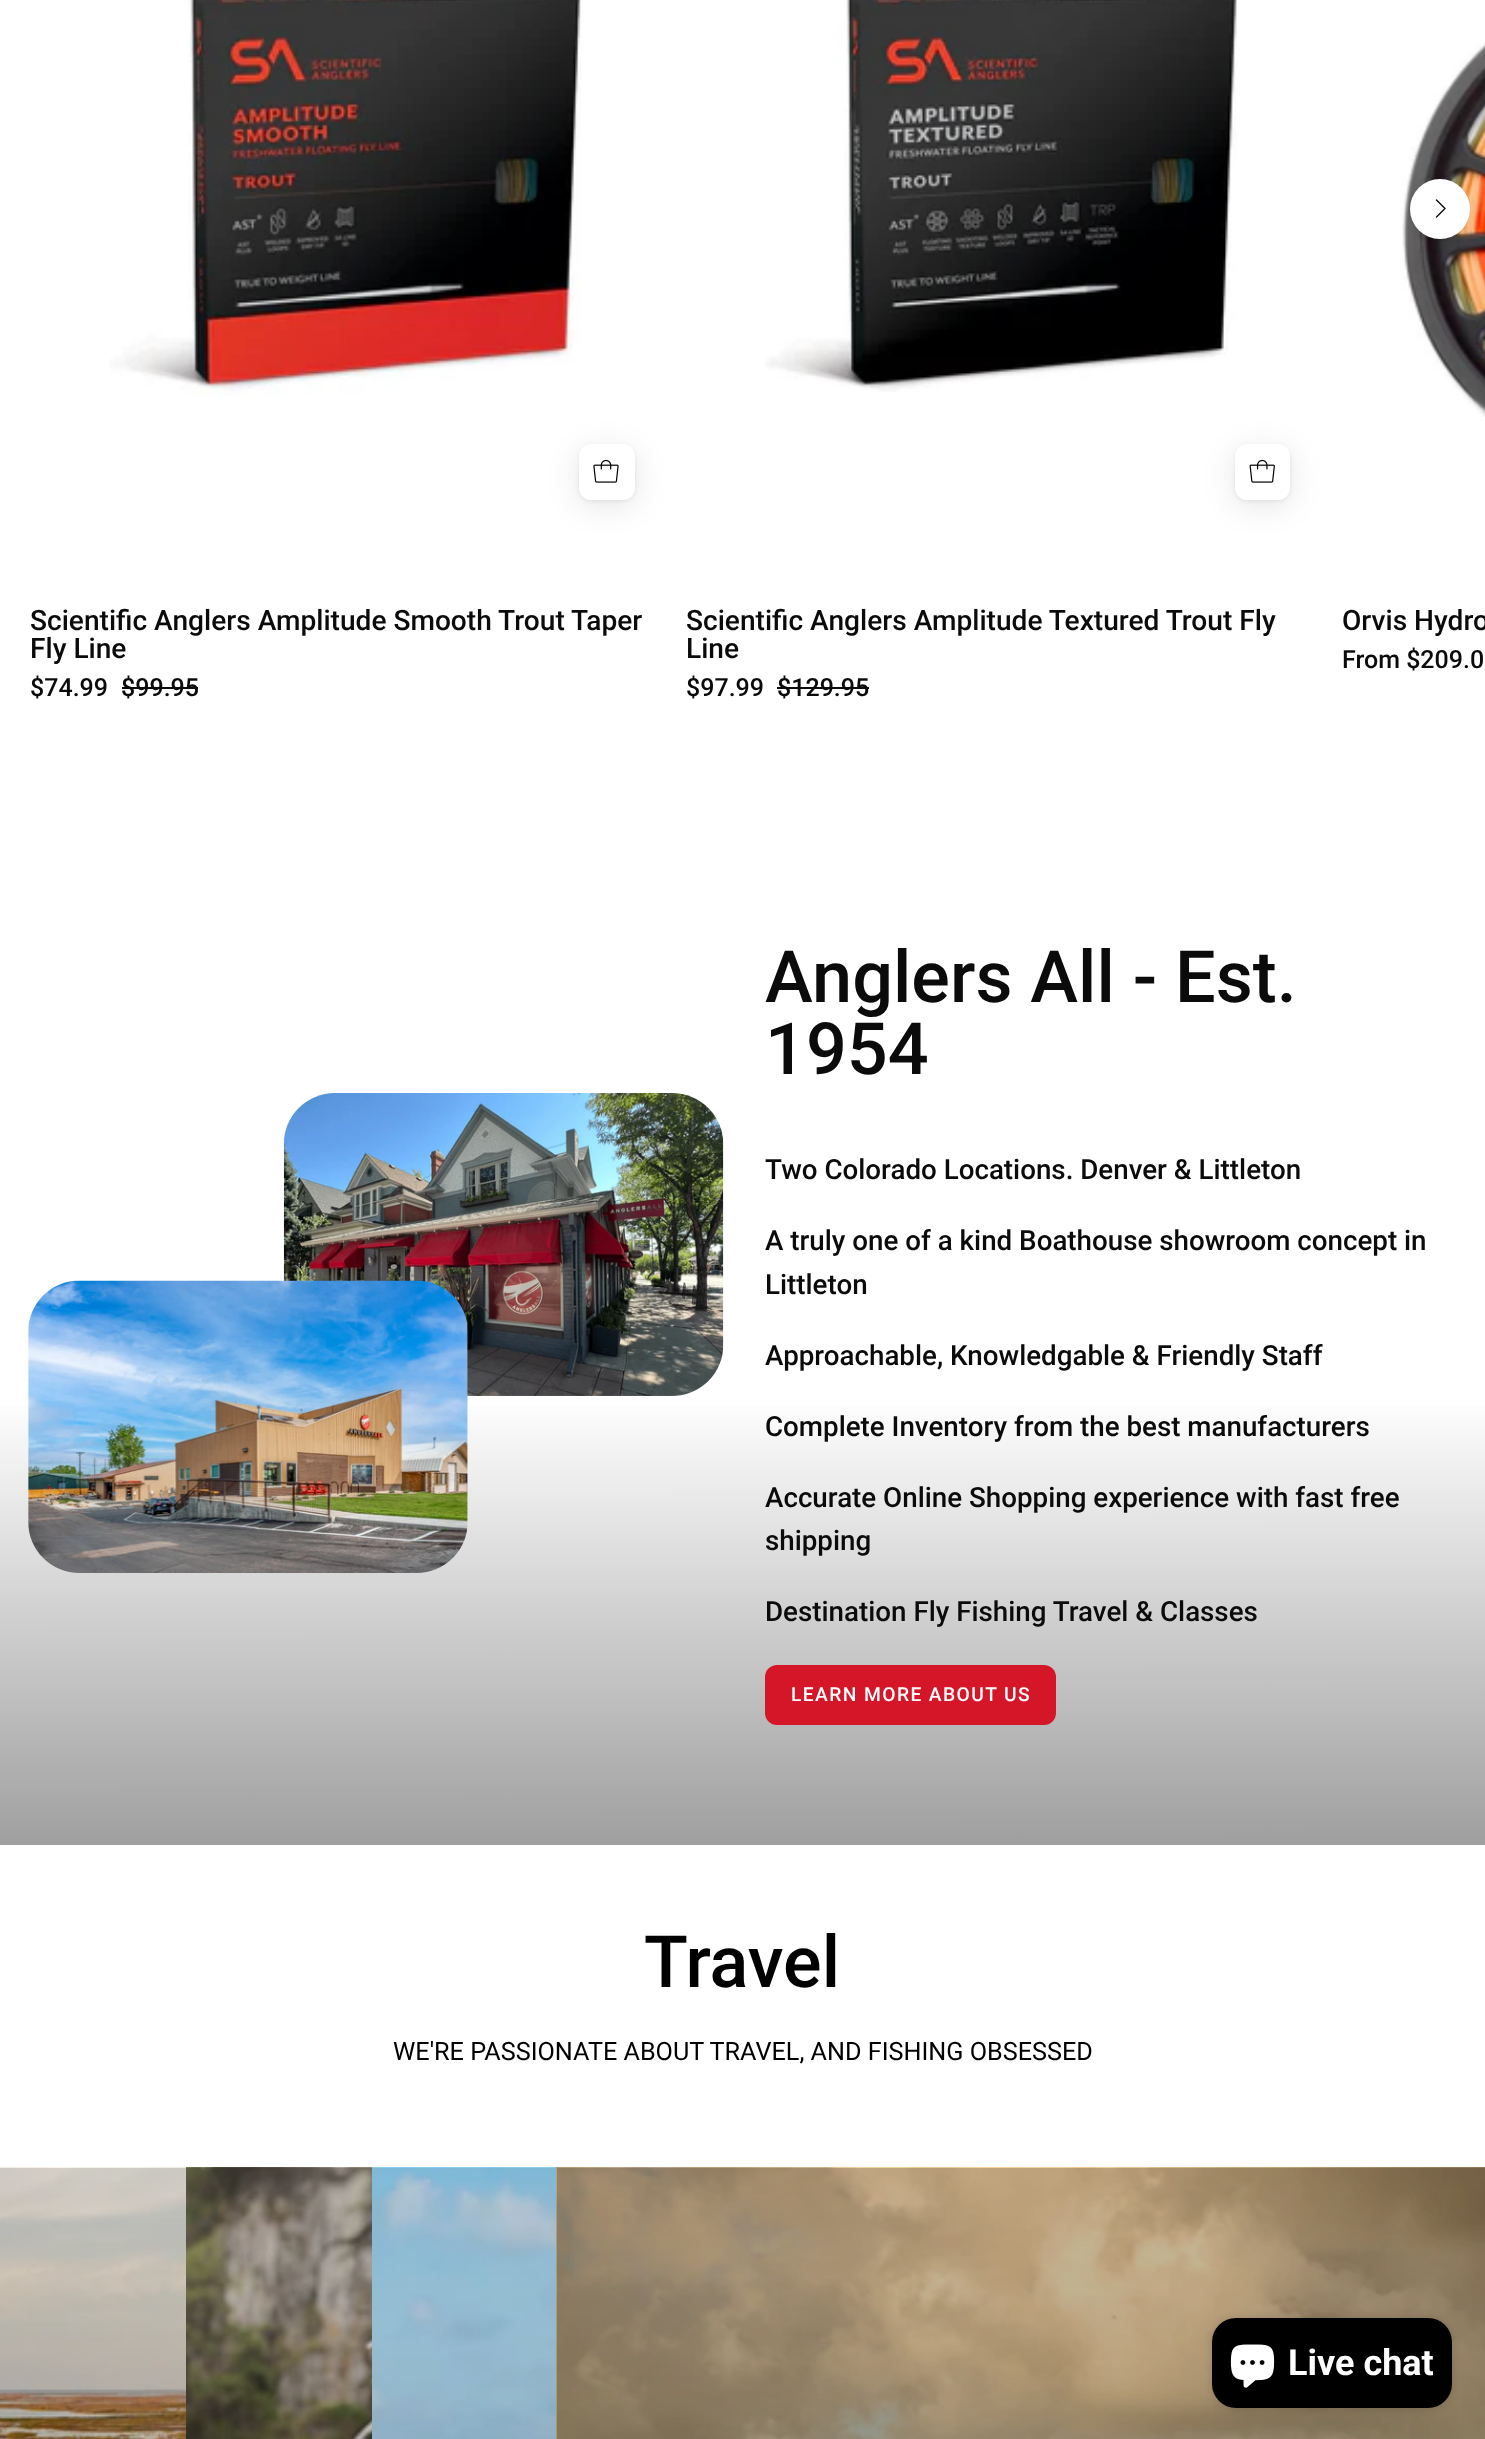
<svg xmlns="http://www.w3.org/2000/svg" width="1485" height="2439">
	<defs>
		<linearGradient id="g1" gradientUnits="userSpaceOnUse" x1="742" y1="822" x2="743" y2="1845"><stop offset="0" stop-color="#FFFFFF" /><stop offset="0.56" stop-color="#FFFFFF" /><stop offset="1" stop-color="#9F9F9F" /></linearGradient>
	</defs>
	<rect width="100%" height="100%" fill="#FFFFFF" />
	<image x="1402" y="43" width="83" height="374" href="assets/img5.png" />
	<rect x="1410" y="180" width="60" height="60" rx="30" fill="#000000" fill-opacity="0.06" filter="blur(4px)" />
	<rect x="1410" y="180" width="60" height="60" rx="30" fill="#000000" fill-opacity="0.08" filter="blur(1px)" />
	<circle cx="1440" cy="209" r="30" fill="#FFFFFF" />
	<path d="M1436.5 200L1445 208.5L1436.5 217" fill="none" stroke="#0B0B0B" stroke-width="1.4" stroke-linecap="round" stroke-linejoin="round" />
	<image x="109" y="0" width="472" height="396" href="assets/img1.png" />
	<rect x="579" y="446" width="56" height="55" rx="12" fill="#000000" fill-opacity="0.07" filter="blur(2px)" />
	<rect x="579" y="450" width="56" height="56" rx="12" fill="#000000" fill-opacity="0.1" filter="blur(15px)" />
	<rect x="579" y="444" width="56" height="56" rx="12" fill="#FFFFFF" />
	<image x="593" y="459" width="26" height="24" href="assets/img2.png" />
	<g font-family="Roboto" font-size="28.1" font-weight="500" fill="#0B0B0B">
		<text x="30" y="630">Scientific Anglers Amplitude Smooth Trout Taper</text>
		<text x="30" y="658">Fly Line</text>
	</g>
	<g font-family="Roboto" font-size="25" font-weight="500" fill="#0B0B0B">
		<text x="30" y="696">$74.99</text>
		<text x="121" y="696">$99.95</text>
	</g>
	<rect x="122" y="687" width="76" height="2" fill="#0B0B0B" />
	<image x="765" y="0" width="473" height="392" href="assets/img3.png" />
	<rect x="1235" y="446" width="55" height="55" rx="12" fill="#000000" fill-opacity="0.07" filter="blur(2px)" />
	<rect x="1235" y="450" width="55" height="56" rx="12" fill="#000000" fill-opacity="0.1" filter="blur(15px)" />
	<rect x="1235" y="444" width="55" height="56" rx="12" fill="#FFFFFF" />
	<image x="1249" y="459" width="26" height="24" href="assets/img4.png" />
	<g font-family="Roboto" font-size="28.1" font-weight="500" fill="#0B0B0B">
		<text x="686" y="630">Scientific Anglers Amplitude Textured Trout Fly</text>
		<text x="686" y="658">Line</text>
	</g>
	<g font-family="Roboto" font-size="25" font-weight="500" fill="#0B0B0B">
		<text x="686" y="696">$97.99</text>
		<text x="777" y="696">$129.95</text>
	</g>
	<rect x="777" y="687" width="92" height="2" fill="#0B0B0B" />
	<text x="1342" y="630" font-family="Roboto" font-size="28.1" font-weight="500" fill="#0B0B0B">Orvis Hydro</text>
	<text x="1342" y="668" font-family="Roboto" font-size="25" font-weight="500" fill="#0B0B0B">From $209.0</text>
	<rect x="0" y="1406" width="1485" height="439" fill="url(#g1)" />
	<image x="283" y="1093" width="441" height="303" href="assets/img6.png" />
	<image x="28" y="1280" width="440" height="293" href="assets/img7.png" />
	<g font-family="Roboto" font-size="72" font-weight="500" fill="#0B0B0B">
		<text x="765" y="1002">Anglers All - Est.</text>
		<text x="765" y="1074">1954</text>
	</g>
	<g font-family="Roboto" font-size="27.75" font-weight="500" fill="#0B0B0B">
		<text x="765" y="1179">Two Colorado Locations. Denver &amp; Littleton</text>
		<text x="765" y="1250">A truly one of a kind Boathouse showroom concept in</text>
		<text x="765" y="1294">Littleton</text>
		<text x="765" y="1365">Approachable, Knowledgable &amp; Friendly Staff</text>
		<text x="765" y="1436">Complete Inventory from the best manufacturers</text>
		<text x="765" y="1507">Accurate Online Shopping experience with fast free</text>
		<text x="765" y="1550">shipping</text>
		<text x="765" y="1621">Destination Fly Fishing Travel &amp; Classes</text>
	</g>
	<rect x="765" y="1665" width="291" height="60" rx="12" fill="#D51629" />
	<text x="791" y="1701" font-family="Roboto" font-size="19.25" font-weight="500" letter-spacing="1.4" fill="#FFFFFF">LEARN MORE ABOUT US</text>
	<text x="644" y="1987" font-family="Roboto" font-size="72" font-weight="500" fill="#000000">Travel</text>
	<text x="393" y="2060" font-family="Roboto" font-size="25.2" fill="#000000">WE'RE PASSIONATE ABOUT TRAVEL, AND FISHING OBSESSED</text>
	<image x="0" y="2167" width="186" height="272" href="assets/img8.png" />
	<image x="186" y="2167" width="186" height="272" href="assets/img9.png" />
	<image x="372" y="2167" width="184" height="272" href="assets/img10.png" />
	<image x="556" y="2167" width="929" height="272" href="assets/img11.png" />
	<rect x="1212" y="2318" width="240" height="90" rx="24" fill="#000000" fill-opacity="0.15" filter="blur(4px)" />
	<rect x="1212" y="2318" width="240" height="90" rx="24" fill="#000000" />
	<image x="1230" y="2344" width="45" height="44" href="assets/img12.png" />
	<text x="1288" y="2375" font-family="Roboto" font-size="36" font-weight="700" fill="#FFFFFF">Live chat</text>
</svg>
